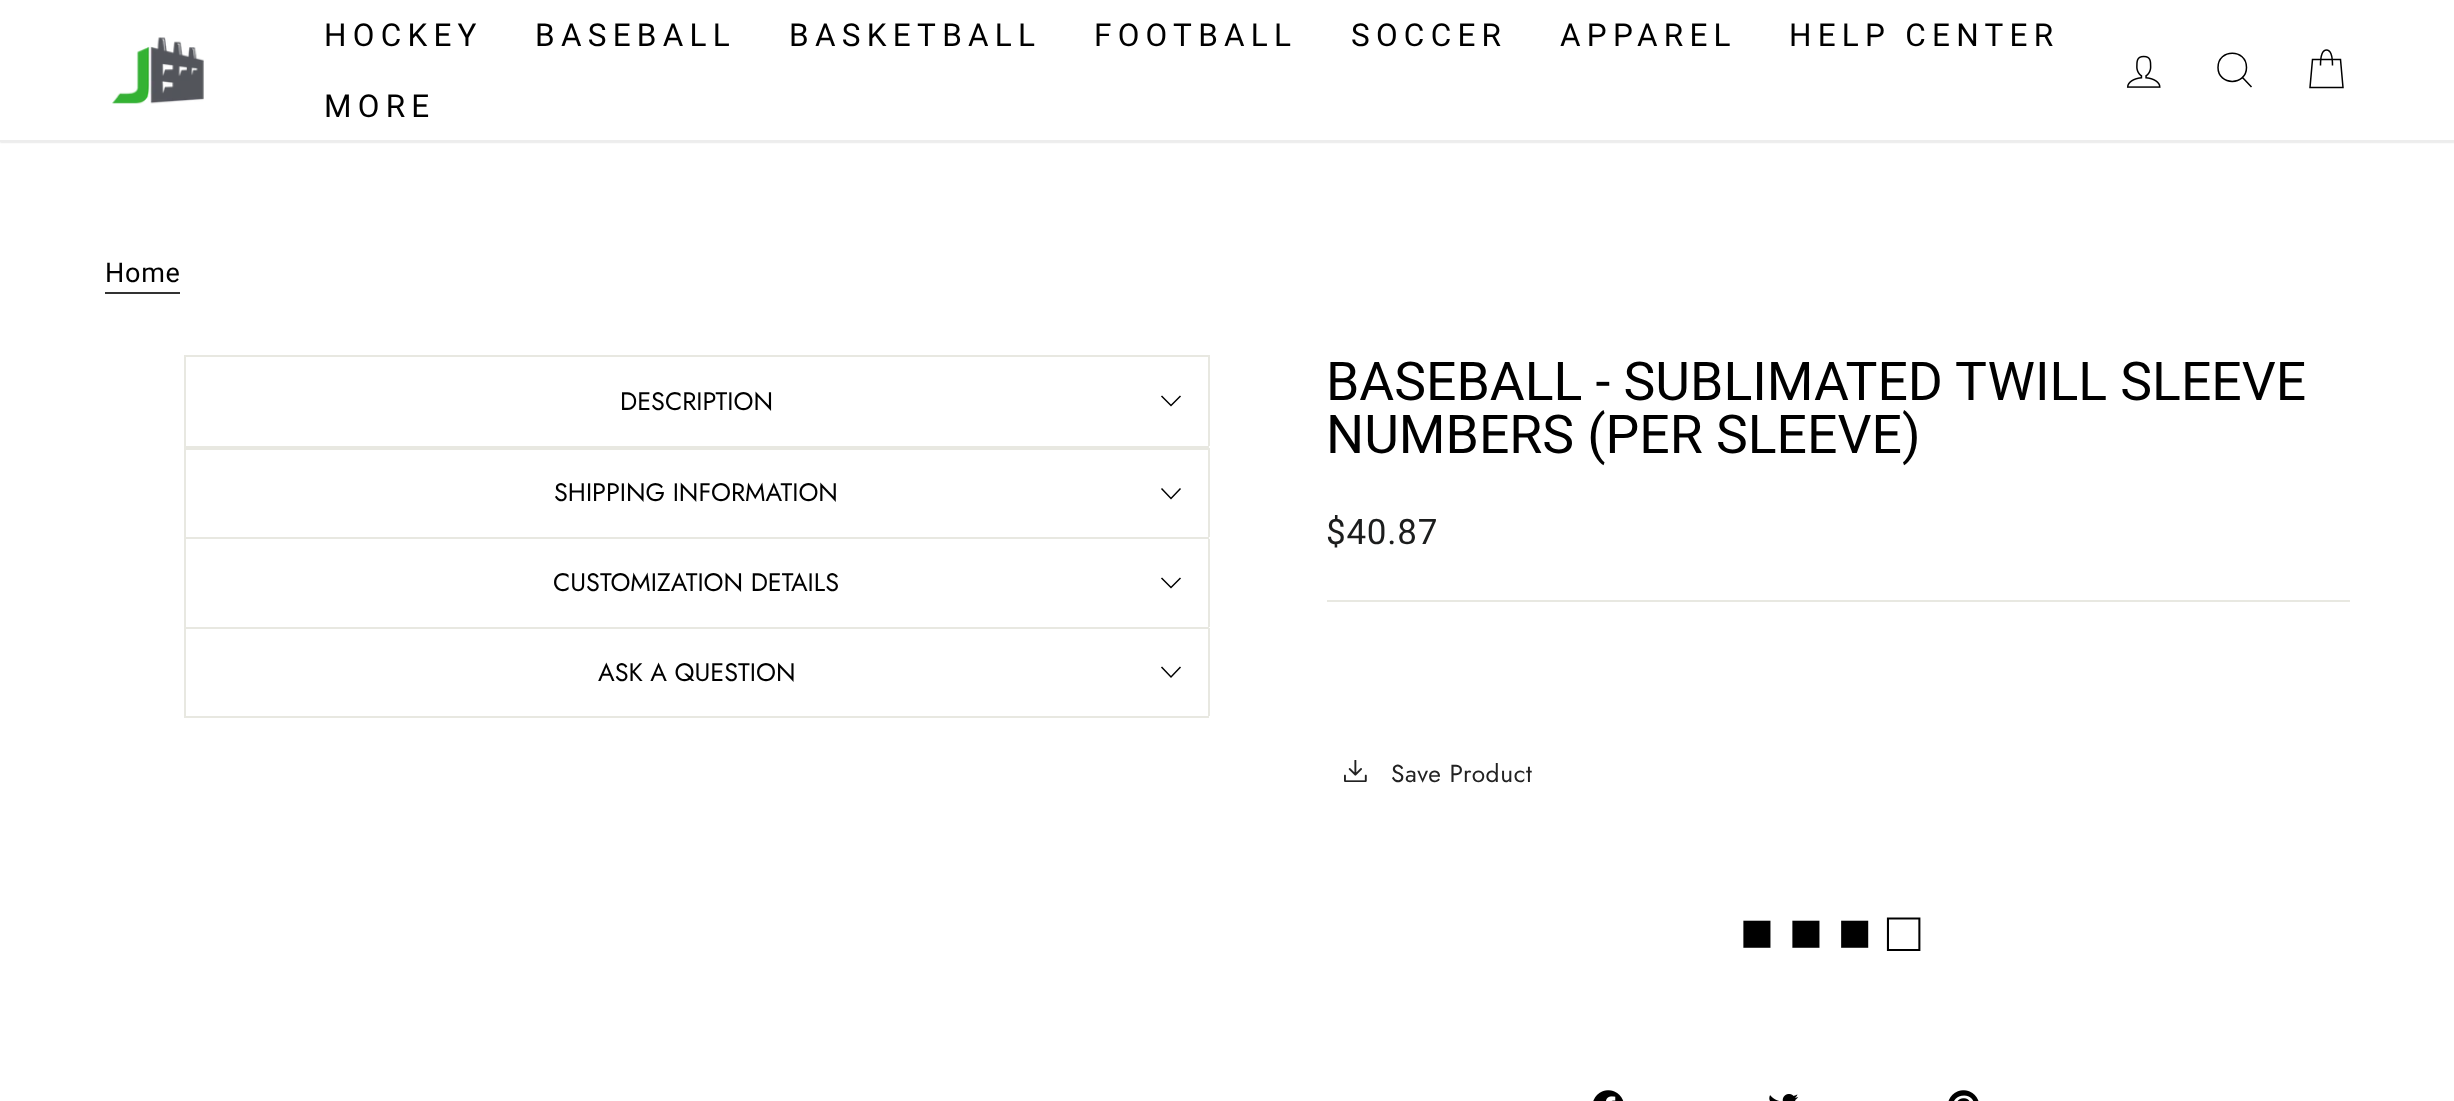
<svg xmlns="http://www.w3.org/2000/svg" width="2454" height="1101">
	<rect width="100%" height="100%" fill="#FFFFFF" />
	<rect x="0" y="0" width="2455" height="142" fill="#000000" fill-opacity="0.2" filter="blur(1px)" />
	<rect x="0" y="0" width="2454" height="140" fill="#FFFFFF" />
	<rect x="0" y="140" width="2454" height="2" fill="#EDEDED" />
	<image x="112" y="37" width="92" height="67" href="assets/img1.png" />
	<g font-family="Roboto" font-size="31.5" letter-spacing="6.25" fill="#000000">
		<text x="324" y="46">HOCKEY</text>
		<text x="535" y="46">BASEBALL</text>
		<text x="789" y="46">BASKETBALL</text>
		<text x="1094" y="46">FOOTBALL</text>
		<text x="1351" y="46">SOCCER</text>
		<text x="1560" y="46">APPAREL</text>
		<text x="1789" y="46">HELP CENTER</text>
		<text x="324" y="117">MORE</text>
	</g>
	<image x="2126" y="55" width="35" height="33" href="assets/img2.png" />
	<path d="M2246.5 67.5C2246.5 86 2218 86 2218 67.5C2218 48.5 2246.5 48.5 2246.5 67.5ZM2251.5 87L2242.5 77.5" fill="none" stroke="#000000" stroke-width="1.5" />
	<path d="M2320.5 65.5C2320.5 53.5 2323 50 2326.5 50C2330 50 2332.5 53.5 2332.5 65.5M2312.5 59.5H2340.5L2343 87.5H2310Z" fill="none" stroke="#000000" stroke-width="1.5" />
	<rect x="105" y="292" width="75" height="2" fill="#333333" />
	<text x="105" y="282" font-family="Roboto" font-size="27" letter-spacing="0.75" fill="#000000">Home</text>
	<rect x="184" y="446" width="1025" height="4" fill="#E8E8E1" />
	<rect x="184" y="355" width="1025" height="2" fill="#E8E8E1" />
	<rect x="1208" y="355" width="2" height="91" fill="#E8E8E1" />
	<rect x="184" y="355" width="2" height="91" fill="#E8E8E1" />
	<text x="620" y="410" font-family="Jost" font-size="25.25" fill="#000000">DESCRIPTION</text>
	<path d="M1161.5 396L1171 405.5L1180.5 396" fill="none" stroke="#000000" stroke-width="1.5" />
	<rect x="184" y="537" width="1025" height="2" fill="#E8E8E1" />
	<rect x="1208" y="448" width="2" height="89" fill="#E8E8E1" />
	<rect x="184" y="448" width="2" height="89" fill="#E8E8E1" />
	<text x="554" y="501" font-family="Jost" font-size="25.25" fill="#000000">SHIPPING INFORMATION</text>
	<path d="M1161.5 488.5L1171 498.5L1180.5 488.5" fill="none" stroke="#000000" stroke-width="1.5" />
	<rect x="184" y="627" width="1025" height="2" fill="#E8E8E1" />
	<rect x="1208" y="539" width="2" height="88" fill="#E8E8E1" />
	<rect x="184" y="539" width="2" height="88" fill="#E8E8E1" />
	<text x="553" y="591" font-family="Jost" font-size="25.25" fill="#000000">CUSTOMIZATION DETAILS</text>
	<path d="M1161.5 578L1171 587.5L1180.5 578" fill="none" stroke="#000000" stroke-width="1.5" />
	<rect x="184" y="716" width="1025" height="2" fill="#E8E8E1" />
	<rect x="1208" y="628" width="2" height="88" fill="#E8E8E1" />
	<rect x="184" y="628" width="2" height="88" fill="#E8E8E1" />
	<text x="598" y="681" font-family="Jost" font-size="25.25" fill="#000000">ASK A QUESTION</text>
	<path d="M1161.5 667L1171 677L1180.5 667" fill="none" stroke="#000000" stroke-width="1.5" />
	<g font-family="Roboto" font-size="53.5" fill="#000000">
		<text x="1326" y="400">BASEBALL - SUBLIMATED TWILL SLEEVE</text>
		<text x="1326" y="453">NUMBERS (PER SLEEVE)</text>
	</g>
	<text x="1326" y="544" font-family="Roboto" font-size="35" letter-spacing="0.75" fill="#1C1D1D">$40.87</text>
	<rect x="1327" y="600" width="1023" height="2" fill="#E8E8E1" />
	<image x="1344" y="760" width="23" height="22" href="assets/img3.png" />
	<text x="1391" y="782" font-family="Jost" font-size="24.5" letter-spacing="0.6" fill="#222222">Save Product</text>
	<text x="1740" y="951" word-spacing="-2" font-family="Liberation Sans" font-size="56" letter-spacing="0.75" fill="#000000">■ ■ ■ □</text>
	<image x="1593" y="1090" width="31" height="11" href="assets/img4.png" />
	<image x="1769" y="1094" width="30" height="7" href="assets/img5.png" />
	<image x="1948" y="1090" width="31" height="11" href="assets/img6.png" />
</svg>
